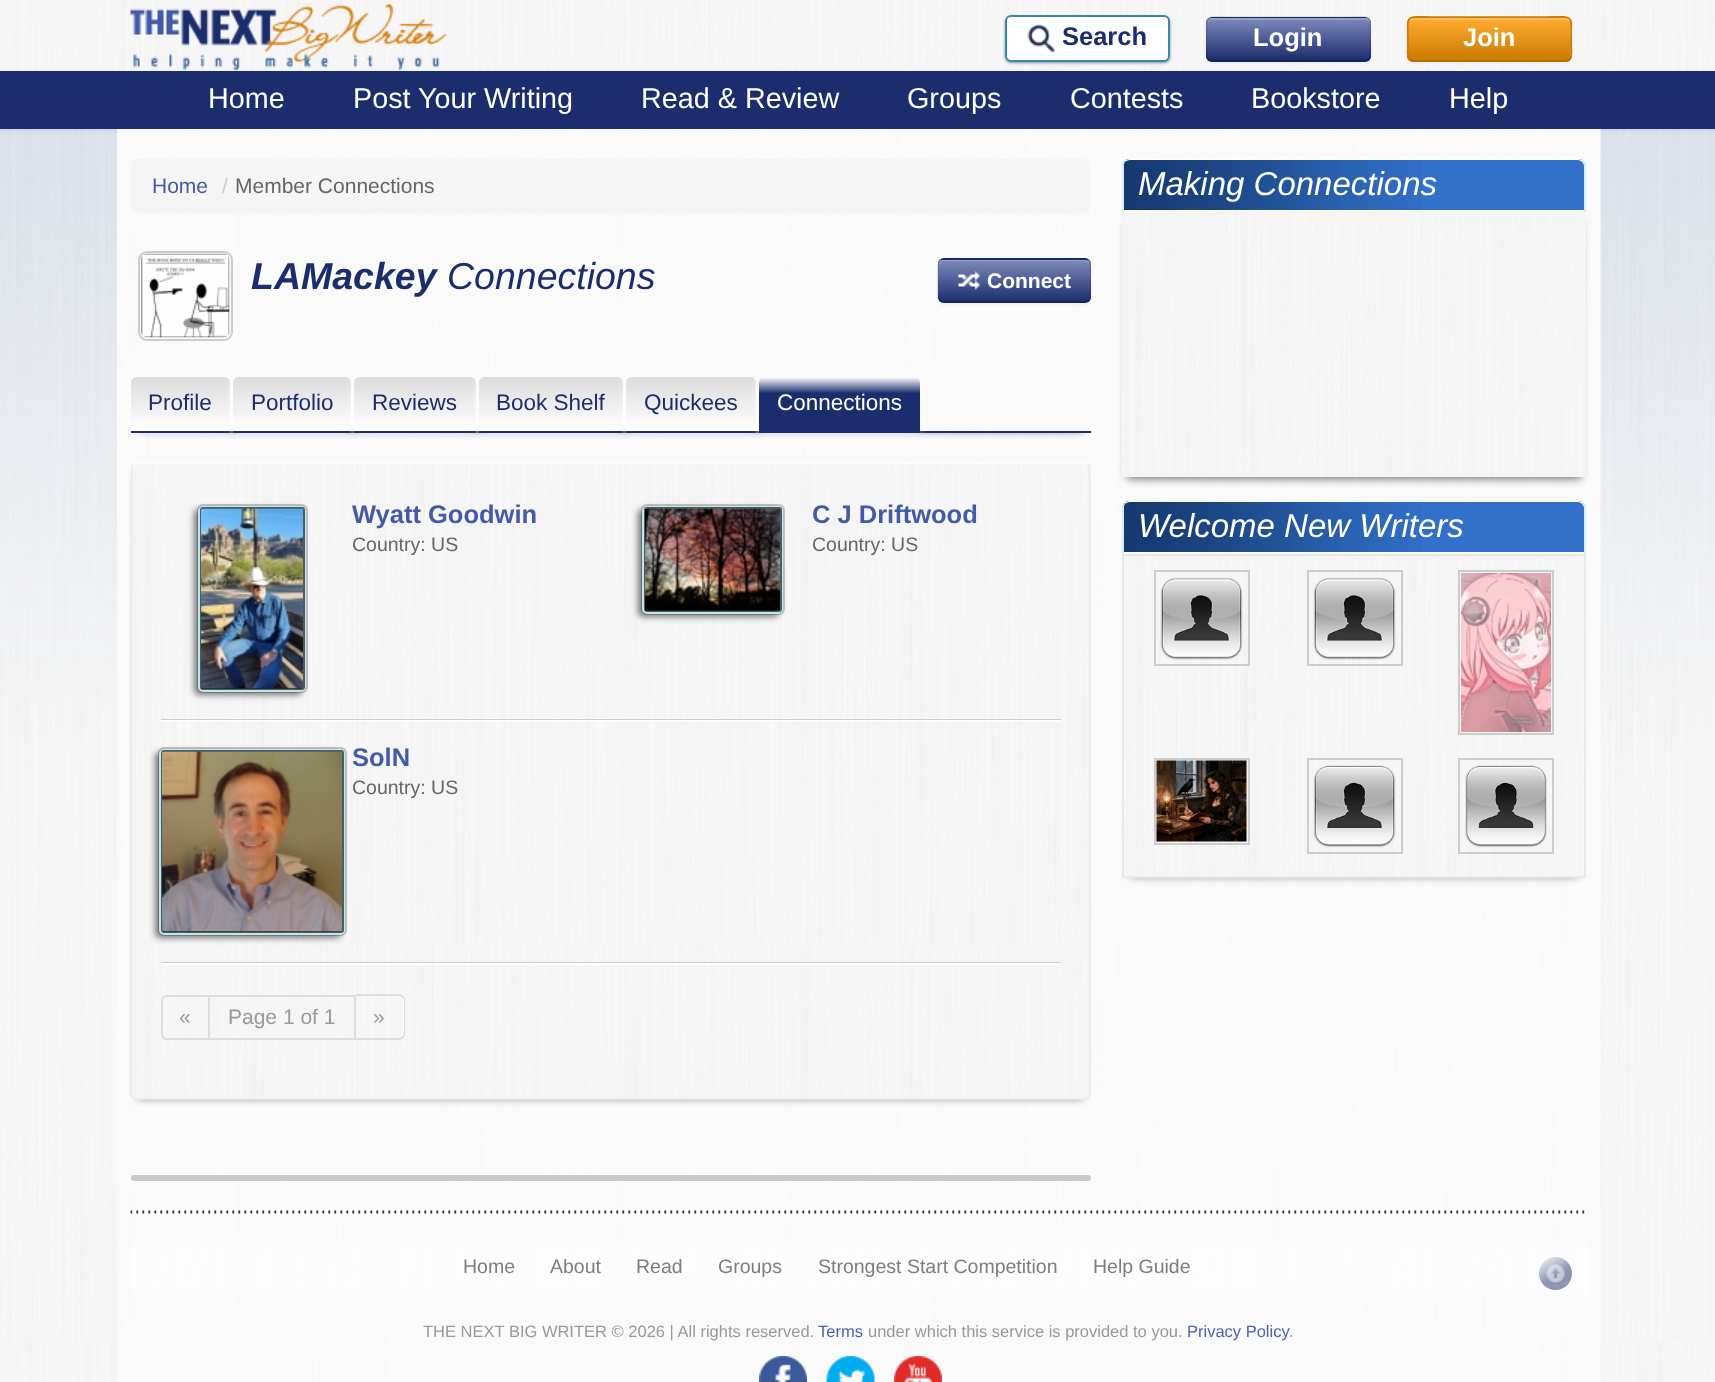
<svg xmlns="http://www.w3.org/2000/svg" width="1715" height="1382">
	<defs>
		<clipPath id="clip1"><rect x="1206" y="17" width="165" height="45" rx="6" /></clipPath>
		<linearGradient id="g1" gradientUnits="userSpaceOnUse" x1="1289" y1="18" x2="1289" y2="60"><stop offset="0" stop-color="#7E8ABC" /><stop offset="1" stop-color="#1B2D6C" /></linearGradient>
		<clipPath id="clip2"><rect x="1407" y="17" width="165" height="45" rx="6" /></clipPath>
		<linearGradient id="g2" gradientUnits="userSpaceOnUse" x1="1490" y1="18" x2="1490" y2="60"><stop offset="0" stop-color="#FFAD32" /><stop offset="1" stop-color="#CC7A00" /></linearGradient>
		<clipPath id="clip3"><rect x="938" y="258" width="153" height="45" rx="6" /></clipPath>
		<linearGradient id="g3" gradientUnits="userSpaceOnUse" x1="1014" y1="260" x2="1014" y2="302"><stop offset="0" stop-color="#7E8ABC" /><stop offset="1" stop-color="#1B2D6C" /></linearGradient>
		<clipPath id="clip4"><rect x="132" y="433" width="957" height="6" /></clipPath>
		<linearGradient id="g4" gradientUnits="userSpaceOnUse" x1="180" y1="377" x2="180" y2="431"><stop offset="0" stop-color="#DCDCDC" /><stop offset="1" stop-color="#FFFFFF" /></linearGradient>
		<linearGradient id="g5" gradientUnits="userSpaceOnUse" x1="292" y1="377" x2="292" y2="431"><stop offset="0" stop-color="#DCDCDC" /><stop offset="1" stop-color="#FFFFFF" /></linearGradient>
		<linearGradient id="g6" gradientUnits="userSpaceOnUse" x1="415" y1="377" x2="415" y2="431"><stop offset="0" stop-color="#DCDCDC" /><stop offset="1" stop-color="#FFFFFF" /></linearGradient>
		<linearGradient id="g7" gradientUnits="userSpaceOnUse" x1="551" y1="377" x2="551" y2="431"><stop offset="0" stop-color="#DCDCDC" /><stop offset="1" stop-color="#FFFFFF" /></linearGradient>
		<linearGradient id="g8" gradientUnits="userSpaceOnUse" x1="691" y1="377" x2="691" y2="431"><stop offset="0" stop-color="#DCDCDC" /><stop offset="1" stop-color="#FFFFFF" /></linearGradient>
		<linearGradient id="g9" gradientUnits="userSpaceOnUse" x1="839" y1="377" x2="839" y2="431"><stop offset="0" stop-color="#FFFFFF" /><stop offset="0.3" stop-color="#1B2D6C" /></linearGradient>
		<linearGradient id="g10" gradientUnits="userSpaceOnUse" x1="1544" y1="1254" x2="1567" y2="1293"><stop offset="0" stop-color="#F9F9F9" /><stop offset="0.55" stop-color="#8C95B4" /></linearGradient>
	</defs>
	<rect width="100%" height="100%" fill="#FFFFFF" />
	<image x="0" y="0" width="1715" height="1382" href="assets/img1.png" />
	<image x="168" y="0" width="1315" height="66" href="assets/img2.png" />
	<image x="130" y="4" width="317" height="67" href="assets/img3.png" />
	<rect x="1005" y="17" width="165" height="46" rx="6" fill="#1B2D6B" fill-opacity="0.5" filter="blur(1.5px)" />
	<rect x="1006" y="16" width="163" height="45" rx="5" fill="#FFFFFF" stroke="#3A87AD" stroke-width="2" />
	<image x="1027" y="24" width="29" height="29" href="assets/img4.png" />
	<text x="1062" y="45" font-family="Liberation Sans" font-size="25.5" font-weight="700" fill="#1B2D6C">Search</text>
	<rect x="1206" y="18" width="165" height="45" rx="6" fill="#000000" fill-opacity="0.05" filter="blur(1.5px)" />
	<rect x="1206" y="17" width="165" height="45" rx="6" fill="#1B2D6C" />
	<g clip-path="url(#clip1)">
		<rect x="1206" y="18" width="165" height="42" fill="url(#g1)" />
	</g>
	<path d="M1212 20H1365C1367 20 1370 22 1370 24V23C1370 20 1368 18 1365 18H1213C1210 18 1208 20 1208 23V24C1208 22 1210 20 1212 20Z" fill="#FFFFFF" fill-opacity="0.2" />
	<path d="M1368.5 59C1367.5 60 1366.5 61 1365 61H1212C1210.5 61 1209.5 60 1208.5 59" fill="none" stroke="#000000" stroke-opacity="0.25" stroke-width="1.5" />
	<path d="M1208.5 59C1205 56 1207 48 1207 44.5C1207 11.5 1201.5 17 1237.5 17H1339.5C1375.5 17 1370 11.5 1370 44.5C1370 48 1372 56 1368.5 59" fill="none" stroke="#000000" stroke-opacity="0.1" stroke-width="1.5" />
	<text x="1253" y="46" font-family="Liberation Sans" font-size="25.5" font-weight="700" fill="#FFFFFF">Login</text>
	<rect x="1407" y="18" width="165" height="45" rx="6" fill="#000000" fill-opacity="0.05" filter="blur(1.5px)" />
	<rect x="1407" y="17" width="165" height="45" rx="6" fill="#CC7A00" />
	<g clip-path="url(#clip2)">
		<rect x="1407" y="18" width="165" height="42" fill="url(#g2)" />
	</g>
	<path d="M1413 20H1566C1568 20 1570 22 1570 24V58C1571 57 1571 56 1571 55V23C1571 20 1569 18 1566 18H1414C1412 18 1410 20 1409 22C1410 21 1412 20 1413 20Z" fill="#FFFFFF" fill-opacity="0.2" />
	<path d="M1569.5 59C1568.5 60 1567.5 61 1566 61H1413C1411.5 61 1410.5 60 1409.5 59" fill="none" stroke="#B36B00" stroke-width="1.5" />
	<path d="M1409.5 59C1406 56 1408 48 1408 44.5C1408 11.5 1402.5 17 1438.5 17H1540.5C1576.5 17 1571 11.5 1571 44.5C1571 48 1573 56 1569.5 59" fill="none" stroke="#CC7A00" stroke-width="1.5" />
	<text x="1463" y="46" font-family="Liberation Sans" font-size="25.5" font-weight="700" fill="#FFFFFF">Join</text>
	<rect x="0" y="71" width="1715" height="58" fill="#1B2D6C" />
	<g font-family="Liberation Sans" font-size="28.75" fill="#FFFFFF">
		<text x="208" y="108">Home</text>
		<text x="353" y="108">Post Your Writing</text>
		<text x="641" y="108">Read &amp; Review</text>
		<text x="907" y="108">Groups</text>
		<text x="1070" y="108">Contests</text>
		<text x="1251" y="108">Bookstore</text>
		<text x="1449" y="108">Help</text>
	</g>
	<image x="0" y="129" width="1715" height="1213" href="assets/img5.png" />
	<image x="117" y="129" width="1484" height="1253" href="assets/img6.png" />
	<rect x="131" y="159" width="960" height="54" rx="8" fill="#F5F5F5" />
	<rect x="131" y="159" width="327" height="54" rx="6" fill="#F5F5F5" />
	<text x="152" y="193" font-family="Liberation Sans" font-size="21" fill="#425AA7">Home</text>
	<text x="222" y="193" font-family="Liberation Sans" font-size="21" fill="#CCCCCC">/</text>
	<text x="235" y="193" font-family="Liberation Sans" font-size="21" fill="#666666">Member Connections</text>
	<rect x="139" y="252" width="93" height="88" rx="8" fill="none" stroke="#CCCCCC" stroke-width="2" />
	<image x="141" y="253" width="89" height="85" href="assets/img7.png" />
	<text x="251" y="289" font-family="Liberation Sans" font-size="37.5" font-weight="700" font-style="italic" fill="#1B2D6C">LAMackey</text>
	<text x="447" y="289" font-family="Liberation Sans" font-size="37.5" font-style="italic" fill="#1B2D6C">Connections</text>
	<rect x="938" y="260" width="153" height="45" rx="6" fill="#000000" fill-opacity="0.05" filter="blur(1.5px)" />
	<rect x="938" y="258" width="153" height="45" rx="6" fill="#1B2D6C" />
	<g clip-path="url(#clip3)">
		<rect x="938" y="260" width="153" height="42" fill="url(#g3)" />
	</g>
	<path d="M944 261H1084C1087 261 1089 263 1089 266V265C1089 262 1087 260 1084 260H944C941 260 939 262 939 265V266C939 263 941 261 944 261Z" fill="#FFFFFF" fill-opacity="0.2" />
	<path d="M1088 300.5C1087 301.5 1086 302 1084.5 302H943.5C942 302 941 301.5 940 300.5" fill="none" stroke="#000000" stroke-opacity="0.25" stroke-width="1.5" />
	<path d="M940 300.5C936.5 297.5 938 289.5 938 286C938 253.5 933 259 967 259H1061C1095 259 1090 253.5 1090 286C1090 289.5 1091.5 297.5 1088 300.5" fill="none" stroke="#000000" stroke-opacity="0.1" stroke-width="1.5" />
	<image x="958" y="271" width="22" height="20" href="assets/img8.png" />
	<text x="987" y="288" font-family="Liberation Sans" font-size="21" font-weight="700" fill="#FFFFFF">Connect</text>
	<g clip-path="url(#clip4)">
		<rect x="138" y="375" width="945" height="56" fill="#777777" filter="blur(4px)" />
	</g>
	<rect x="230" y="431" width="861" height="2" fill="#1B2D6C" />
	<rect x="131" y="377" width="99" height="55" rx="6" fill="#FFFFFF" filter="blur(4px)" />
	<path d="M137 377H224C227.5 377 230 379.5 230 383V431H131V383C131 379.5 133.5 377 137 377Z" fill="url(#g4)" />
	<rect x="131" y="431" width="99" height="2" fill="#1B2D6C" />
	<text x="148" y="410" font-family="Liberation Sans" font-size="22.5" fill="#1B2D6C">Profile</text>
	<rect x="233" y="377" width="118" height="55" rx="6" fill="#FFFFFF" filter="blur(4px)" />
	<path d="M239 377H345C348.5 377 351 379.5 351 383V431H233V383C233 379.5 235.5 377 239 377Z" fill="url(#g5)" />
	<rect x="233" y="431" width="118" height="2" fill="#1B2D6C" />
	<text x="251" y="410" font-family="Liberation Sans" font-size="22.5" fill="#1B2D6C">Portfolio</text>
	<rect x="354" y="377" width="122" height="55" rx="6" fill="#FFFFFF" filter="blur(4px)" />
	<path d="M360 377H470C473.5 377 476 379.5 476 383V431H354V383C354 379.5 356.5 377 360 377Z" fill="url(#g6)" />
	<rect x="354" y="431" width="122" height="2" fill="#1B2D6C" />
	<text x="372" y="410" font-family="Liberation Sans" font-size="22.5" fill="#1B2D6C">Reviews</text>
	<rect x="479" y="377" width="144" height="55" rx="6" fill="#FFFFFF" filter="blur(4px)" />
	<path d="M485 377H617C620.5 377 623 379.5 623 383V431H479V383C479 379.5 481.5 377 485 377Z" fill="url(#g7)" />
	<rect x="479" y="431" width="144" height="2" fill="#1B2D6C" />
	<text x="496" y="410" font-family="Liberation Sans" font-size="22.5" fill="#1B2D6C">Book Shelf</text>
	<rect x="626" y="377" width="130" height="55" rx="6" fill="#FFFFFF" filter="blur(4px)" />
	<path d="M632 377H750C753.5 377 756 379.5 756 383V431H626V383C626 379.5 628.5 377 632 377Z" fill="url(#g8)" />
	<rect x="626" y="431" width="130" height="2" fill="#1B2D6C" />
	<text x="644" y="410" font-family="Liberation Sans" font-size="22.5" fill="#1B2D6C">Quickees</text>
	<rect x="759" y="377" width="161" height="55" rx="6" fill="#FFFFFF" filter="blur(4px)" />
	<path d="M765 377H914C917.5 377 920 379.5 920 383V431H759V383C759 379.5 761.5 377 765 377Z" fill="url(#g9)" />
	<rect x="759" y="431" width="161" height="2" fill="#1B2D6C" />
	<text x="777" y="410" font-family="Liberation Sans" font-size="22.5" fill="#FFFFFF">Connections</text>
	<rect x="138" y="476" width="945" height="622" fill="#777777" filter="blur(4px)" />
	<image x="131" y="462" width="959" height="638" href="assets/img9.png" />
	<path d="M133 464.5C134 463.5 135 463 136.5 463H1084.5C1086 463 1087 463.5 1088 464.5" fill="none" stroke="#FFFFFF" stroke-width="1.5" />
	<path d="M1088 464.5L1089.5 467.5L1090 1093.5C1089.5 1096.5 1087.5 1098.5 1084.5 1099H136.5C133.5 1098.5 131.5 1096.5 131 1093.5L131.5 467.5L133 464.5" fill="none" stroke="#E9E9E9" stroke-width="1.5" />
	<rect x="194" y="509" width="108" height="186" rx="5" fill="#777777" filter="blur(3px)" />
	<rect x="199.5" y="506.5" width="106" height="184" rx="3.5" fill="none" stroke="#000000" stroke-opacity="0.2" stroke-width="5" />
	<rect x="199.5" y="507.5" width="105" height="183" rx="3.5" fill="none" stroke="#BCE8F1" stroke-width="3" />
	<rect x="201" y="508" width="103" height="181" rx="2" fill="none" stroke="#000000" stroke-opacity="0.6" stroke-width="2" />
	<image x="201" y="508" width="102" height="181" href="assets/img10.png" />
	<text x="352" y="523" font-family="Liberation Sans" font-size="25.5" font-weight="700" fill="#425AA7">Wyatt Goodwin</text>
	<text x="352" y="551" font-family="Liberation Sans" font-size="19.5" fill="#666666">Country: US</text>
	<rect x="638" y="509" width="141" height="108" rx="5" fill="#777777" filter="blur(3px)" />
	<rect x="643.5" y="506.5" width="139" height="106" rx="3.5" fill="none" stroke="#000000" stroke-opacity="0.2" stroke-width="5" />
	<rect x="643.5" y="507.5" width="138" height="105" rx="3.5" fill="none" stroke="#BCE8F1" stroke-width="3" />
	<rect x="645" y="508" width="136" height="103" rx="2" fill="none" stroke="#000000" stroke-opacity="0.6" stroke-width="2" />
	<image x="645" y="508" width="135" height="103" href="assets/img11.png" />
	<text x="812" y="523" font-family="Liberation Sans" font-size="25.5" font-weight="700" fill="#425AA7">C J Driftwood</text>
	<text x="812" y="551" font-family="Liberation Sans" font-size="19.5" fill="#666666">Country: US</text>
	<rect x="161" y="719" width="900" height="1" fill="#CCCCCC" />
	<rect x="161" y="720" width="900" height="2" fill="#FFFFFF" />
	<rect x="155" y="752" width="186" height="186" rx="5" fill="#777777" filter="blur(3px)" />
	<rect x="160.5" y="749.5" width="184" height="184" rx="3.5" fill="none" stroke="#000000" stroke-opacity="0.2" stroke-width="5" />
	<rect x="160.5" y="750.5" width="183" height="183" rx="3.5" fill="none" stroke="#BCE8F1" stroke-width="3" />
	<rect x="162" y="751" width="181" height="181" rx="2" fill="none" stroke="#000000" stroke-opacity="0.6" stroke-width="2" />
	<image x="162" y="751" width="180" height="181" href="assets/img12.png" />
	<text x="352" y="766" font-family="Liberation Sans" font-size="25.5" font-weight="700" fill="#425AA7">SolN</text>
	<text x="352" y="794" font-family="Liberation Sans" font-size="19.5" fill="#666666">Country: US</text>
	<rect x="161" y="962" width="900" height="1" fill="#CCCCCC" />
	<rect x="161" y="963" width="900" height="2" fill="#FFFFFF" />
	<path d="M167 996H209V1039H167C164 1039 162 1037 162 1034V1001C162 998 164 996 167 996Z" fill="none" stroke="#DDDDDD" stroke-width="2" />
	<text x="179" y="1024" font-family="Liberation Sans" font-size="21" fill="#999999">«</text>
	<rect x="245" y="997" width="83" height="41" fill="#F5F5F5" />
	<rect x="210" y="995" width="146" height="2" fill="#DDDDDD" />
	<rect x="354" y="995" width="2" height="45" fill="#DDDDDD" />
	<rect x="210" y="1038" width="146" height="2" fill="#DDDDDD" />
	<text x="228" y="1024" font-family="Liberation Sans" font-size="21" fill="#999999">Page 1 of 1</text>
	<path d="M356 994H399C402 994 405 997 405 1000V1034C405 1037 402 1040 399 1040H356ZM356 996H399C401 996 404 998 404 1000V1034C404 1036 401 1038 399 1038H356Z" fill="#DDDDDD" fill-rule="evenodd" />
	<text x="373" y="1024" font-family="Liberation Sans" font-size="21" fill="#999999">»</text>
	<rect x="131" y="1175" width="960" height="6" rx="3" fill="#C9C9C9" />
	<path d="M1130 159H1578C1582.5 159 1586 162.5 1586 167V212H1122V167C1122 162.5 1125.5 159 1130 159Z" fill="#3171C9" />
	<image x="1123" y="159" width="299" height="52" href="assets/img13.png" />
	<path d="M1130 159C1127 159 1125 160 1124 161L1125 162C1126 161 1128 160 1130 160H1578C1580 160 1581 161 1582 162L1584 161C1582 160 1580 159 1578 159Z" fill="#FFFFFF" />
	<path d="M1584 161L1586 164V212L1584 210V166C1584 165 1583 163 1582 162Z" fill="#D1EFF5" />
	<path d="M1586 212L1584 210H1124L1122 212Z" fill="#FFFFFF" />
	<path d="M1122 212L1124 210V166C1124 165 1124 163 1125 162L1124 161C1123 162 1122 164 1122 166Z" fill="#D1EFF5" />
	<text x="1138" y="195" font-family="Liberation Sans" font-size="33" font-style="italic" fill="#FFFFFF">Making Connections</text>
	<rect x="1127" y="222" width="454" height="257" fill="#777777" filter="blur(4px)" />
	<image x="1122" y="211" width="464" height="266" href="assets/img14.png" />
	<path d="M1130 501H1578C1582.5 501 1586 504.5 1586 509V554H1122V509C1122 504.5 1125.5 501 1130 501Z" fill="#3171C9" />
	<image x="1123" y="501" width="299" height="52" href="assets/img15.png" />
	<path d="M1130 501C1127 501 1125 502 1124 503L1125 504C1126 503 1128 502 1130 502H1578C1580 502 1581 503 1582 504L1584 503C1582 502 1580 501 1578 501Z" fill="#FFFFFF" />
	<path d="M1584 503L1586 506V554L1584 552V508C1584 507 1583 505 1582 504Z" fill="#D1EFF5" />
	<path d="M1586 554L1584 552H1124L1122 554Z" fill="#FFFFFF" />
	<path d="M1122 554L1124 552V508C1124 507 1124 505 1125 504L1124 503C1123 504 1122 506 1122 508Z" fill="#D1EFF5" />
	<text x="1138" y="537" font-family="Liberation Sans" font-size="33" font-style="italic" fill="#FFFFFF">Welcome New Writers</text>
	<rect x="1130" y="567" width="448" height="309" fill="#777777" filter="blur(4px)" />
	<image x="1122" y="553" width="464" height="323" href="assets/img16.png" />
	<rect x="1123" y="555" width="462" height="322" fill="none" stroke="#E9E9E9" stroke-width="2" />
	<rect x="1155" y="571" width="94" height="94" fill="none" stroke="#CCCCCC" stroke-width="2" />
	<image x="1160" y="577" width="83" height="83" href="assets/img17.png" />
	<rect x="1308" y="571" width="94" height="94" fill="none" stroke="#CCCCCC" stroke-width="2" />
	<image x="1313" y="577" width="83" height="83" href="assets/img18.png" />
	<rect x="1459" y="571" width="94" height="163" fill="none" stroke="#CCCCCC" stroke-width="2" />
	<image x="1461" y="573" width="90" height="159" href="assets/img19.png" />
	<rect x="1155" y="759" width="94" height="85" fill="none" stroke="#CCCCCC" stroke-width="2" />
	<image x="1156" y="760" width="91" height="82" href="assets/img20.png" />
	<rect x="1308" y="759" width="94" height="94" fill="none" stroke="#CCCCCC" stroke-width="2" />
	<image x="1313" y="765" width="83" height="83" href="assets/img21.png" />
	<rect x="1459" y="759" width="94" height="94" fill="none" stroke="#CCCCCC" stroke-width="2" />
	<image x="1465" y="765" width="82" height="83" href="assets/img22.png" />
	<image x="130" y="1210" width="1457" height="4" href="assets/img23.png" />
	<rect x="131" y="1241" width="1456" height="54" fill="#FFFFFF" fill-opacity="0.5" />
	<g font-family="Liberation Sans" font-size="19.5" fill="#7D7D7D">
		<text x="463" y="1273">Home</text>
		<text x="550" y="1273">About</text>
		<text x="636" y="1273">Read</text>
		<text x="718" y="1273">Groups</text>
		<text x="818" y="1273">Strongest Start Competition</text>
		<text x="1093" y="1273">Help Guide</text>
	</g>
	<circle cx="1555.5" cy="1273.5" r="16.5" fill="url(#g10)" />
	<image x="1546" y="1264" width="19" height="20" href="assets/img24.png" />
	<text x="423" y="1337" font-family="Liberation Sans" font-size="16.5" fill="#999999">THE NEXT BIG WRITER © 2026 | All rights reserved.</text>
	<text x="818" y="1337" font-family="Liberation Sans" font-size="16.5" fill="#4D64AC">Terms</text>
	<text x="868" y="1337" font-family="Liberation Sans" font-size="16.5" fill="#999999">under which this service is provided to you.</text>
	<text x="1187" y="1337" font-family="Liberation Sans" font-size="16.5" fill="#4D64AC">Privacy Policy</text>
	<text x="1289" y="1337" font-family="Liberation Sans" font-size="16.5" fill="#999999">.</text>
	<image x="759" y="1356" width="48" height="26" href="assets/img25.png" />
	<image x="826" y="1356" width="49" height="26" href="assets/img26.png" />
	<image x="894" y="1356" width="48" height="26" href="assets/img27.png" />
</svg>
